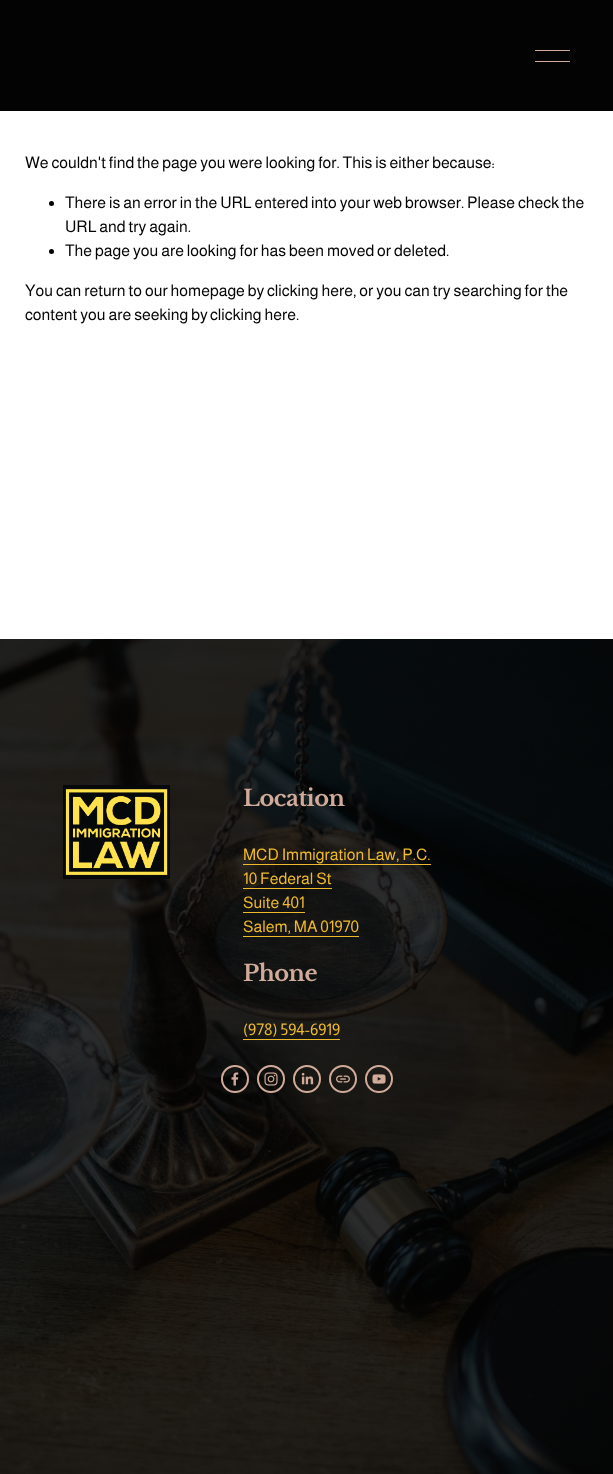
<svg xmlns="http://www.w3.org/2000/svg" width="613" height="1474">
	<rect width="100%" height="100%" fill="#FFFFFF" />
	<rect x="0" y="0" width="613" height="111" fill="#030303" />
	<rect x="535" y="50" width="35" height="1" fill="#D0AB99" />
	<rect x="535" y="61" width="35" height="1" fill="#D0AB99" />
	<text x="25" y="168" font-family="Almarai" font-size="16" fill="#030303">We couldn't find the page you were looking for. This is either because:</text>
	<circle cx="51.5" cy="203.5" r="2.5" fill="#030303" />
	<g font-family="Almarai" font-size="16" fill="#030303">
		<text x="65" y="208">There is an error in the URL entered into your web browser. Please check the</text>
		<text x="65" y="232">URL and try again.</text>
	</g>
	<circle cx="51.5" cy="251.5" r="2.5" fill="#030303" />
	<g font-family="Almarai" font-size="16" fill="#030303">
		<text x="65" y="256">The page you are looking for has been moved or deleted.</text>
		<text x="25" y="296">You can return to our homepage by</text>
		<text x="267" y="296">clicking here</text>
		<text x="353" y="296">, or you can try searching for the</text>
		<text x="25" y="320">content you are seeking by</text>
		<text x="210" y="320">clicking here</text>
		<text x="296" y="320">.</text>
	</g>
	<image x="0" y="639" width="613" height="835" href="assets/img1.png" />
	<image x="63" y="785" width="107" height="94" href="assets/img2.png" />
	<text x="243" y="806" font-family="Libre Baskerville" font-size="22.5" font-weight="700" letter-spacing="-0.5" fill="#D0AB99">Location</text>
	<text x="243" y="860" font-family="Almarai" font-size="16" fill="#EEBA2B">MCD Immigration Law, P.C.</text>
	<rect x="243" y="864" width="188" height="1" fill="#EEBA2B" />
	<text x="243" y="884" font-family="Almarai" font-size="16" fill="#EEBA2B">10 Federal St</text>
	<rect x="243" y="888" width="89" height="1" fill="#EEBA2B" />
	<text x="243" y="908" font-family="Almarai" font-size="16" fill="#EEBA2B">Suite 401</text>
	<rect x="243" y="912" width="62" height="1" fill="#EEBA2B" />
	<text x="243" y="932" font-family="Almarai" font-size="16" fill="#EEBA2B">Salem, MA 01970</text>
	<rect x="243" y="936" width="116" height="1" fill="#EEBA2B" />
	<text x="243" y="981" font-family="Libre Baskerville" font-size="22.5" font-weight="700" letter-spacing="-0.5" fill="#D0AB99">Phone</text>
	<text x="243" y="1035" font-family="Almarai" font-size="16" fill="#EEBA2B">(978) 594-6919</text>
	<rect x="243" y="1039" width="97" height="1" fill="#EEBA2B" />
	<circle cx="235" cy="1079" r="13" fill="none" stroke="#D0AB99" stroke-width="2" />
	<image x="231" y="1072" width="8" height="14" href="assets/img3.png" />
	<circle cx="271" cy="1079" r="13" fill="none" stroke="#D0AB99" stroke-width="2" />
	<image x="264" y="1072" width="14" height="14" href="assets/img4.png" />
	<circle cx="307" cy="1079" r="13" fill="none" stroke="#D0AB99" stroke-width="2" />
	<image x="301" y="1072" width="13" height="13" href="assets/img5.png" />
	<circle cx="343" cy="1079" r="13" fill="none" stroke="#D0AB99" stroke-width="2" />
	<image x="336" y="1075" width="14" height="8" href="assets/img6.png" />
	<circle cx="379" cy="1079" r="13" fill="none" stroke="#D0AB99" stroke-width="2" />
	<image x="372" y="1074" width="14" height="10" href="assets/img7.png" />
</svg>
